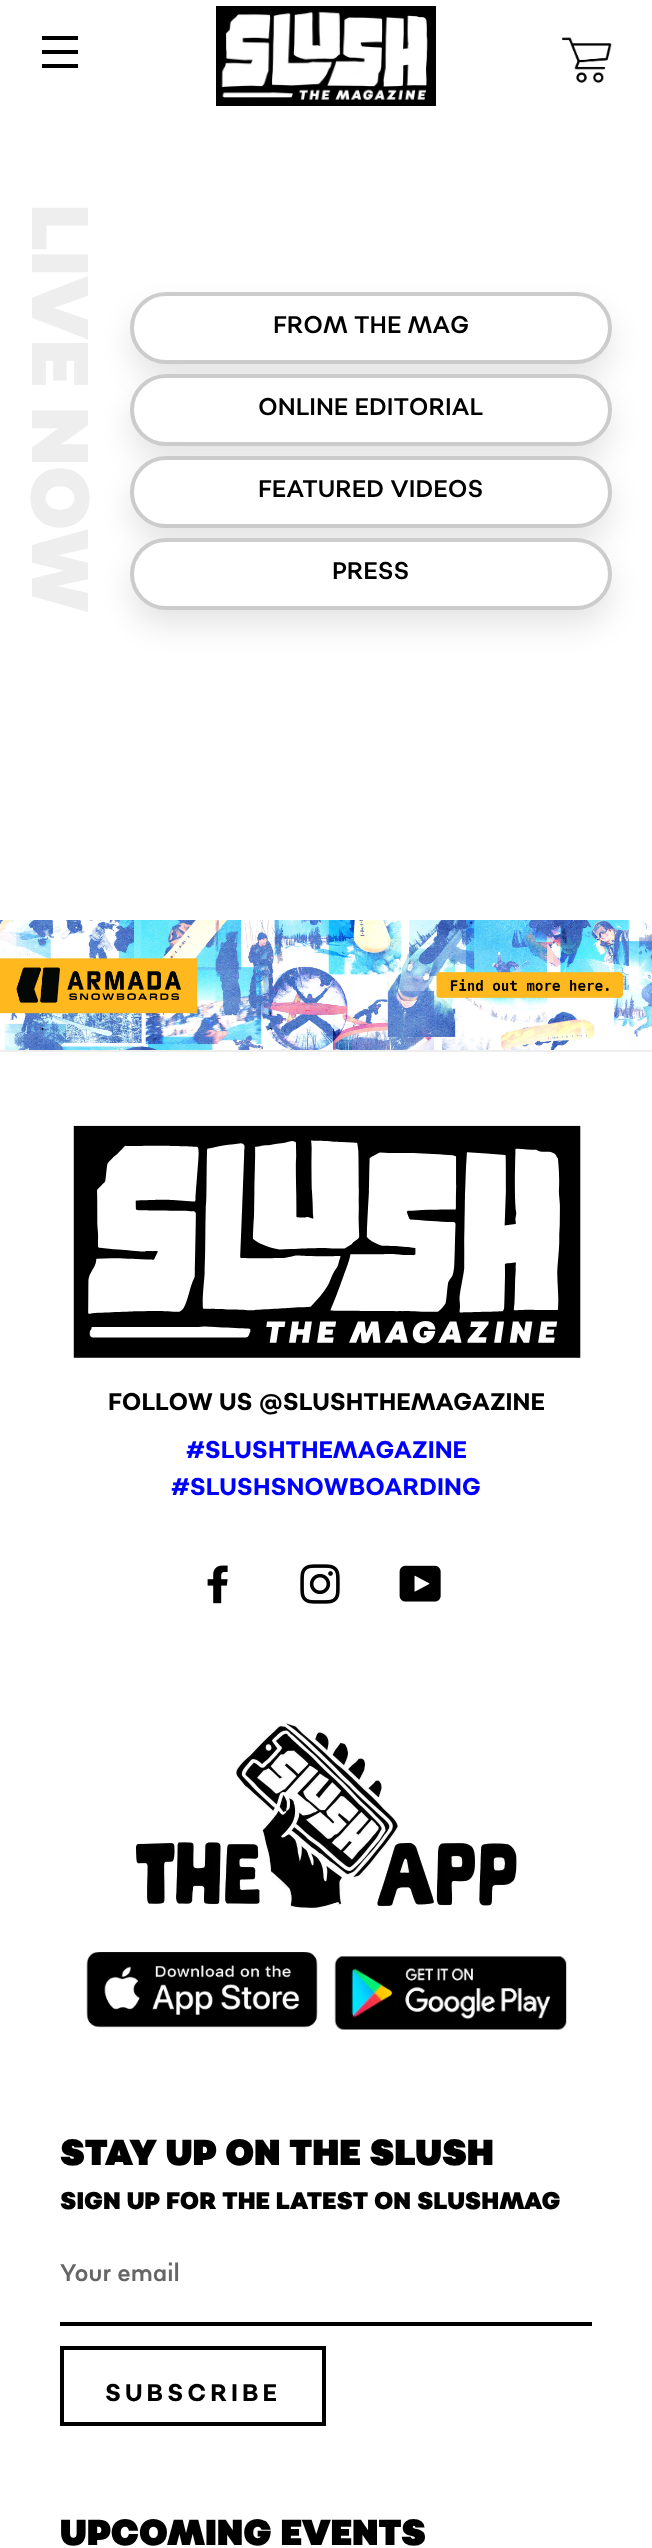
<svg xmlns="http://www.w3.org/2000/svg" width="652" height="2548">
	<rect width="100%" height="100%" fill="#FFFFFF" />
	<rect x="42" y="36" width="36" height="4" fill="#000000" />
	<rect x="42" y="50" width="36" height="4" fill="#000000" />
	<rect x="42" y="64" width="36" height="4" fill="#000000" />
	<image x="216" y="6" width="220" height="100" href="assets/img1.png" />
	<image x="562" y="37" width="50" height="46" href="assets/img2.png" />
	<text x="32" y="204" transform="rotate(90 32 204)" font-family="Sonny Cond" font-size="80" font-weight="900" fill="#EEEEEE">LIVE NOW</text>
	<rect x="130" y="308" width="482" height="72" rx="36" fill="#000000" fill-opacity="0.1" filter="blur(15px)" />
	<rect x="132" y="294" width="478" height="68" rx="34" fill="#FFFFFF" stroke="#CCCCCC" stroke-width="4" />
	<text x="273" y="333" font-family="Sonny Cond" font-size="24" fill="#000000">FROM THE MAG</text>
	<rect x="130" y="390" width="482" height="72" rx="36" fill="#000000" fill-opacity="0.1" filter="blur(15px)" />
	<rect x="132" y="376" width="478" height="68" rx="34" fill="#FFFFFF" stroke="#CCCCCC" stroke-width="4" />
	<text x="258" y="415" font-family="Sonny Cond" font-size="24" fill="#000000">ONLINE EDITORIAL</text>
	<rect x="130" y="472" width="482" height="72" rx="36" fill="#000000" fill-opacity="0.1" filter="blur(15px)" />
	<rect x="132" y="458" width="478" height="68" rx="34" fill="#FFFFFF" stroke="#CCCCCC" stroke-width="4" />
	<text x="258" y="497" font-family="Sonny Cond" font-size="24" fill="#000000">FEATURED VIDEOS</text>
	<rect x="130" y="554" width="482" height="72" rx="36" fill="#000000" fill-opacity="0.1" filter="blur(15px)" />
	<rect x="132" y="540" width="478" height="68" rx="34" fill="#FFFFFF" stroke="#CCCCCC" stroke-width="4" />
	<text x="332" y="579" font-family="Sonny Cond" font-size="24" fill="#000000">PRESS</text>
	<image x="0" y="920" width="652" height="130" href="assets/img3.png" />
	<rect x="0" y="1050" width="652" height="2" fill="#EEEEEE" />
	<image x="73" y="1125" width="508" height="233" href="assets/img4.png" />
	<text x="108" y="1410" font-family="Sonny Cond" font-size="24" font-weight="700" fill="#000000">FOLLOW US @SLUSHTHEMAGAZINE</text>
	<g font-family="Sonny Cond" font-size="24" font-weight="700" fill="#0000FF">
		<text x="186" y="1458">#SLUSHTHEMAGAZINE</text>
		<text x="171" y="1495">#SLUSHSNOWBOARDING</text>
	</g>
	<image x="207" y="1565" width="21" height="39" href="assets/img5.png" />
	<image x="300" y="1564" width="40" height="40" href="assets/img6.png" />
	<image x="399" y="1565" width="42" height="37" href="assets/img7.png" />
	<image x="136" y="1722" width="381" height="187" href="assets/img8.png" />
	<image x="86" y="1952" width="233" height="76" href="assets/img9.png" />
	<image x="334" y="1956" width="233" height="74" href="assets/img10.png" />
	<text x="60" y="2165" font-family="Sonny Cond" font-size="36" font-weight="800" fill="#000000">STAY UP ON THE SLUSH</text>
	<text x="60" y="2209" font-family="Sonny Cond" font-size="24" font-weight="900" fill="#000000">SIGN UP FOR THE LATEST ON SLUSHMAG</text>
	<rect x="60" y="2322" width="532" height="4" fill="#000000" />
	<text x="60" y="2281" font-family="Sonny Cond" font-size="24" fill="#666666">Your email</text>
	<rect x="62" y="2348" width="262" height="76" fill="none" stroke="#000000" stroke-width="4" />
	<text x="105" y="2401" font-family="Sonny Cond" font-size="24" font-weight="700" letter-spacing="4" fill="#000000">SUBSCRIBE</text>
	<text x="60" y="2545" font-family="Sonny Cond" font-size="36" font-weight="800" fill="#000000">UPCOMING EVENTS</text>
</svg>
